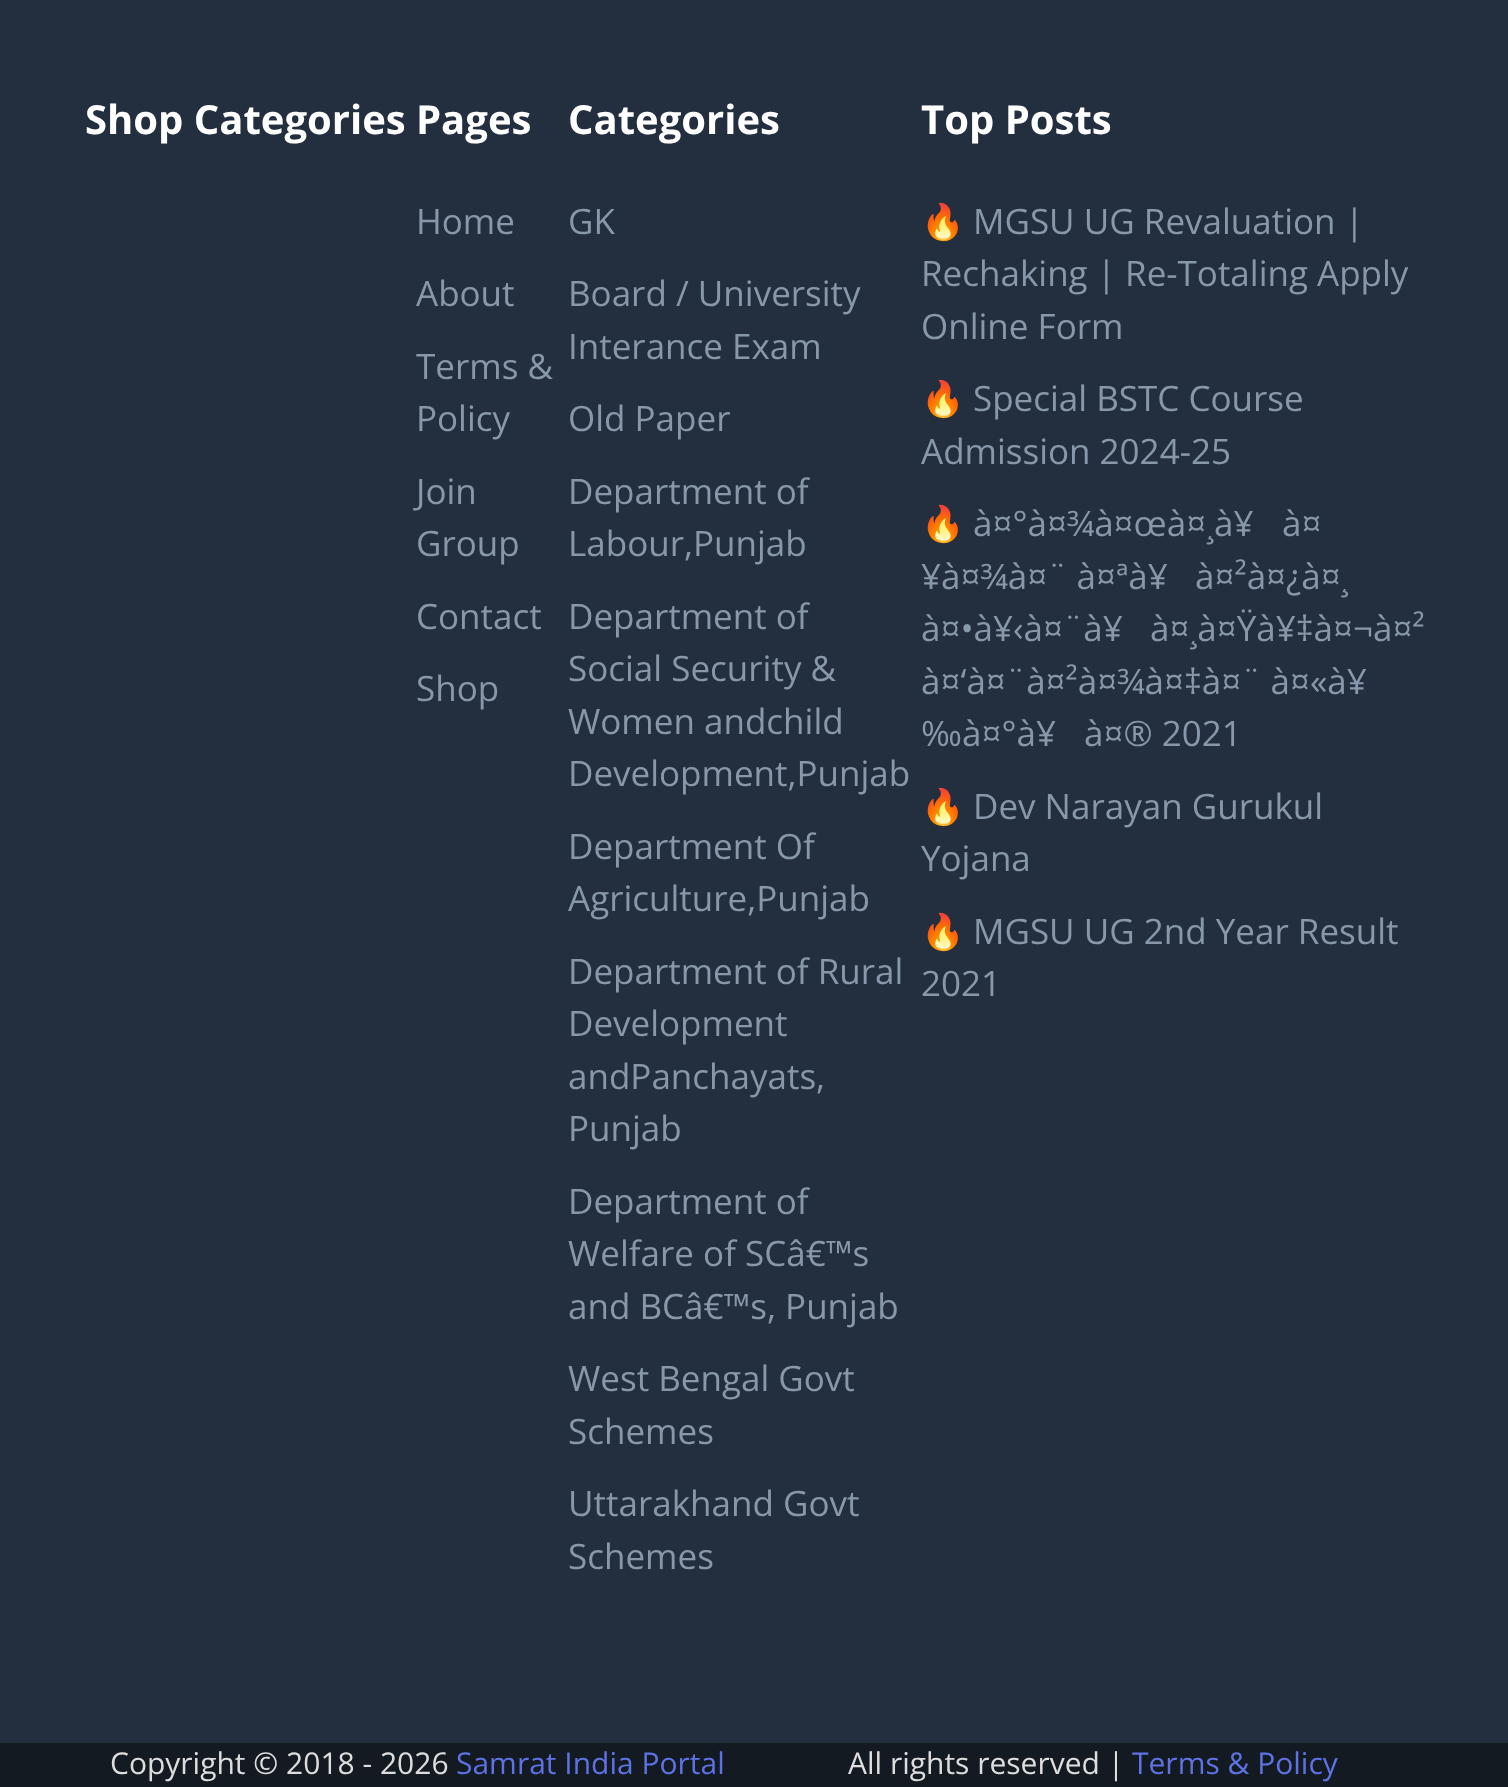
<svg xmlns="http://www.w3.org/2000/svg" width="1508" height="1787">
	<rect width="100%" height="100%" fill="#232F3E" />
	<g font-family="Open Sans" font-size="40" font-weight="700" fill="#FFFFFF">
		<text x="85" y="134">Shop Categories</text>
		<text x="416" y="134">Pages</text>
	</g>
	<g font-family="Open Sans" font-size="35" fill="#8898AA">
		<text x="416" y="234">Home</text>
		<text x="416" y="306">About</text>
		<text x="416" y="379">Terms &amp;</text>
		<text x="416" y="431">Policy</text>
		<text x="416" y="504">Join</text>
		<text x="416" y="556">Group</text>
		<text x="416" y="629">Contact</text>
		<text x="416" y="701">Shop</text>
	</g>
	<text x="568" y="134" font-family="Open Sans" font-size="40" font-weight="700" fill="#FFFFFF">Categories</text>
	<g font-family="Open Sans" font-size="35" fill="#8898AA">
		<text x="568" y="234">GK</text>
		<text x="568" y="306">Board / University</text>
		<text x="568" y="359">Interance Exam</text>
		<text x="568" y="431">Old Paper</text>
		<text x="568" y="504">Department of</text>
		<text x="568" y="556">Labour,Punjab</text>
		<text x="568" y="629">Department of</text>
		<text x="568" y="681">Social Security &amp;</text>
		<text x="568" y="734">Women andchild</text>
		<text x="568" y="786">Development,Punjab</text>
		<text x="568" y="859">Department Of</text>
		<text x="568" y="911">Agriculture,Punjab</text>
		<text x="568" y="984">Department of Rural</text>
		<text x="568" y="1036">Development</text>
		<text x="568" y="1089">andPanchayats,</text>
		<text x="568" y="1141">Punjab</text>
		<text x="568" y="1214">Department of</text>
		<text x="568" y="1266">Welfare of SCâ€™s</text>
		<text x="568" y="1319">and BCâ€™s, Punjab</text>
		<text x="568" y="1391">West Bengal Govt</text>
		<text x="568" y="1444">Schemes</text>
		<text x="568" y="1516">Uttarakhand Govt</text>
		<text x="568" y="1569">Schemes</text>
	</g>
	<text x="921" y="134" font-family="Open Sans" font-size="40" font-weight="700" fill="#FFFFFF">Top Posts</text>
	<text x="921" y="234" font-family="Noto Color Emoji" font-size="35" fill="#8898AA">🔥</text>
	<g font-family="Open Sans" font-size="35" fill="#8898AA">
		<text x="973" y="234">MGSU UG Revaluation |</text>
		<text x="921" y="286">Rechaking | Re-Totaling Apply</text>
		<text x="921" y="339">Online Form</text>
	</g>
	<text x="921" y="411" font-family="Noto Color Emoji" font-size="35" fill="#8898AA">🔥</text>
	<g font-family="Open Sans" font-size="35" fill="#8898AA">
		<text x="973" y="411">Special BSTC Course</text>
		<text x="921" y="464">Admission 2024-25</text>
	</g>
	<text x="921" y="536" font-family="Noto Color Emoji" font-size="35" fill="#8898AA">🔥</text>
	<g font-family="Open Sans" font-size="35" fill="#8898AA">
		<text x="973" y="536">à¤°à¤¾à¤œà¤¸à¥</text>
		<text x="1282" y="536">à¤</text>
		<text x="921" y="589">¥à¤¾à¤¨ à¤ªà¥</text>
		<text x="1195" y="589">à¤²à¤¿à¤¸</text>
		<text x="921" y="641">à¤•à¥‹à¤¨à¥</text>
		<text x="1150" y="641">à¤¸à¤Ÿà¥‡à¤¬à¤²</text>
		<text x="921" y="694">à¤‘à¤¨à¤²à¤¾à¤‡à¤¨ à¤«à¥</text>
		<text x="921" y="746">‰à¤°à¥</text>
		<text x="1084" y="746">à¤® 2021</text>
	</g>
	<text x="921" y="819" font-family="Noto Color Emoji" font-size="35" fill="#8898AA">🔥</text>
	<g font-family="Open Sans" font-size="35" fill="#8898AA">
		<text x="973" y="819">Dev Narayan Gurukul</text>
		<text x="921" y="871">Yojana</text>
	</g>
	<text x="921" y="944" font-family="Noto Color Emoji" font-size="35" fill="#8898AA">🔥</text>
	<g font-family="Open Sans" font-size="35" fill="#8898AA">
		<text x="973" y="944">MGSU UG 2nd Year Result</text>
		<text x="921" y="996">2021</text>
	</g>
	<rect x="0" y="1743" width="1508" height="44" fill="#131A22" />
	<text x="110" y="1774" font-family="Open Sans" font-size="30" fill="#DDDDDD">Copyright © 2018 - 2026</text>
	<text x="456" y="1774" font-family="Open Sans" font-size="30" fill="#5E72E4">Samrat India Portal</text>
	<text x="848" y="1774" font-family="Open Sans" font-size="30" fill="#DDDDDD">All rights reserved |</text>
	<text x="1132" y="1774" font-family="Open Sans" font-size="30" fill="#5E72E4">Terms &amp; Policy</text>
</svg>
